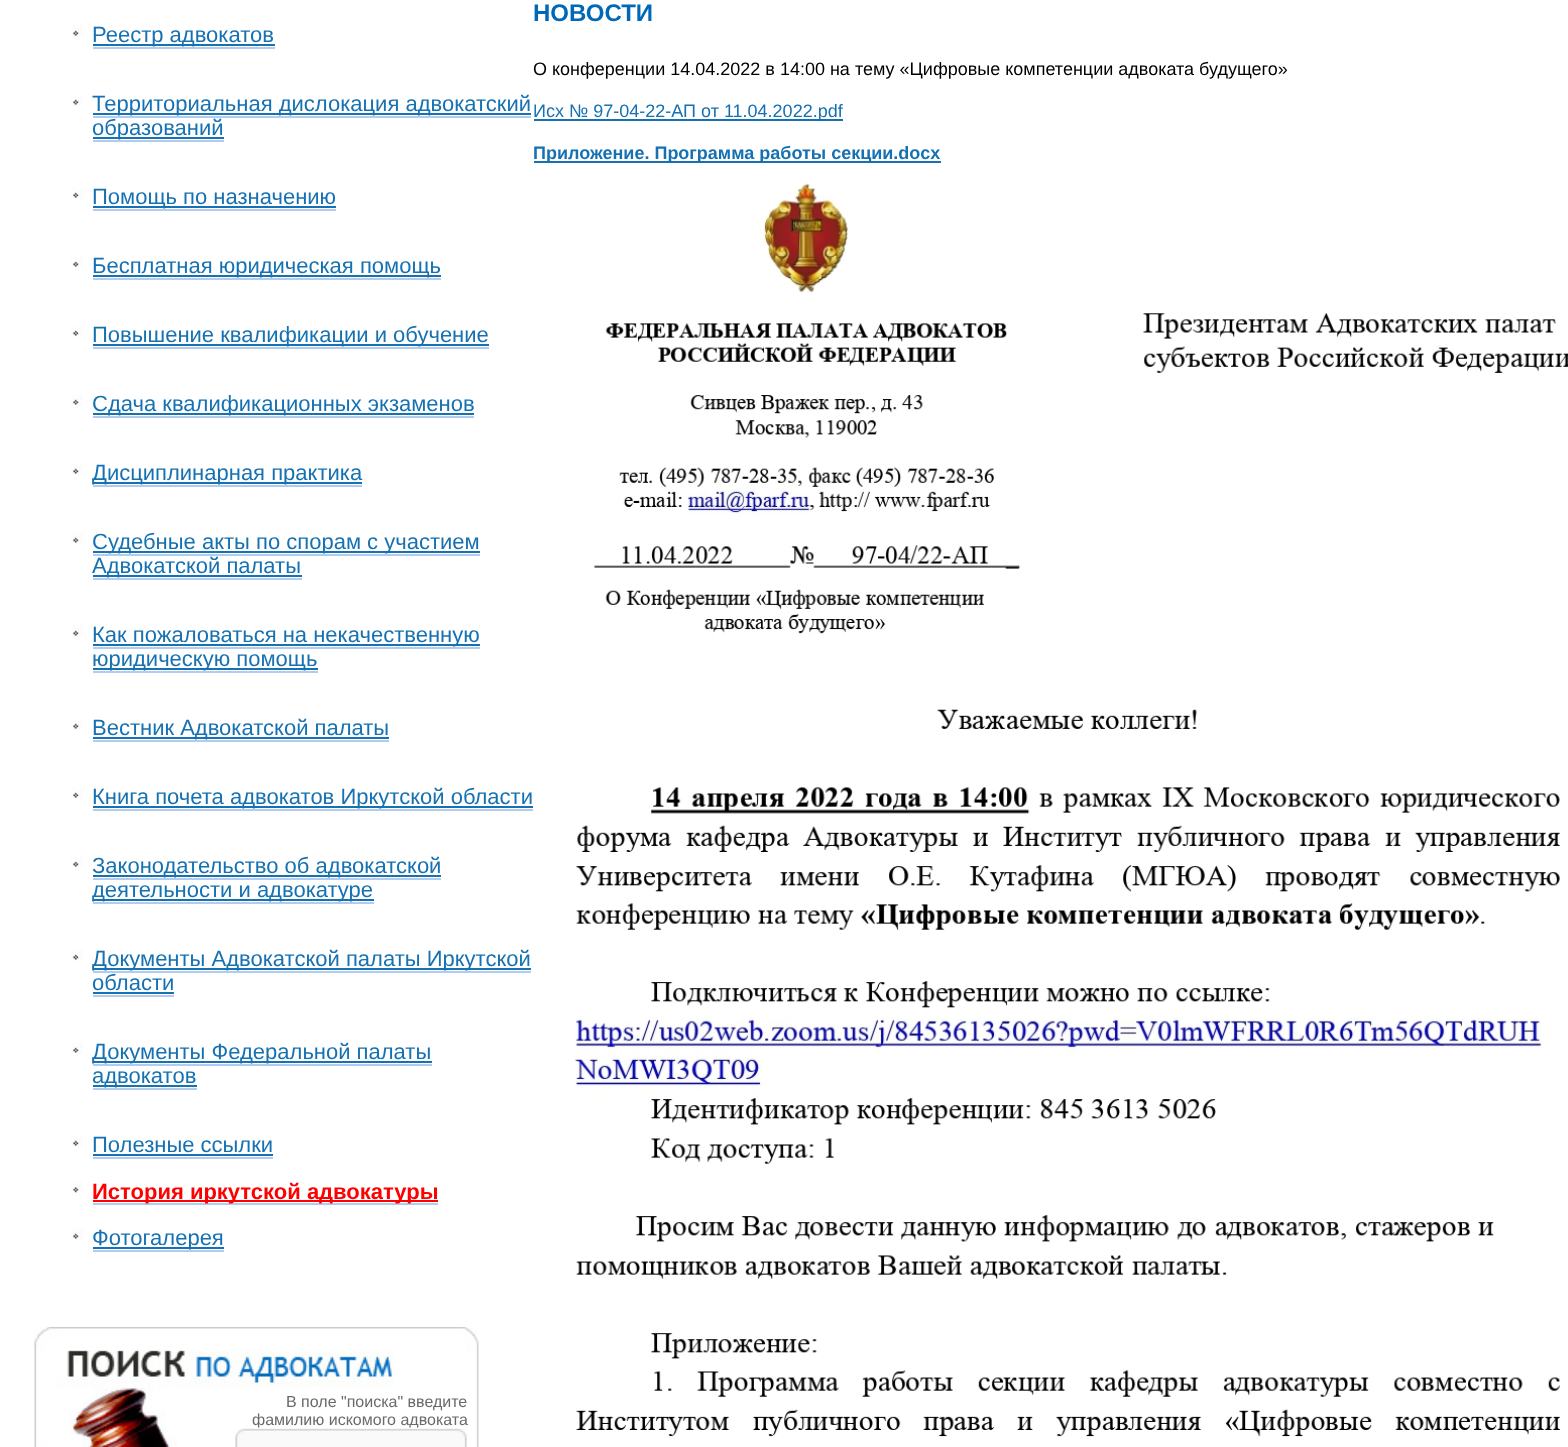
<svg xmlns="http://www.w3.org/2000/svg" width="1568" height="1447">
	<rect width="100%" height="100%" fill="#FFFFFF" />
	<image x="71" y="25" width="12" height="12" href="assets/img1.png" />
	<rect x="93" y="44" width="182" height="2" fill="#1571B2" />
	<text x="92" y="42" font-family="Liberation Sans" font-size="22" fill="#1571B2">Реестр адвокатов</text>
	<rect x="93" y="47" width="182" height="2" fill="#B2CCF0" />
	<image x="71" y="94" width="12" height="12" href="assets/img1.png" />
	<rect x="93" y="113" width="438" height="2" fill="#1571B2" />
	<text x="92" y="111" font-family="Liberation Sans" font-size="22" fill="#1571B2">Территориальная дислокация адвокатский</text>
	<rect x="93" y="116" width="438" height="2" fill="#B2CCF0" />
	<rect x="93" y="137" width="131" height="2" fill="#1571B2" />
	<text x="92" y="135" font-family="Liberation Sans" font-size="22" fill="#1571B2">образований</text>
	<rect x="93" y="140" width="131" height="2" fill="#B2CCF0" />
	<image x="71" y="187" width="12" height="12" href="assets/img1.png" />
	<rect x="93" y="206" width="243" height="2" fill="#1571B2" />
	<text x="92" y="204" font-family="Liberation Sans" font-size="22" fill="#1571B2">Помощь по назначению</text>
	<rect x="93" y="209" width="243" height="2" fill="#B2CCF0" />
	<image x="71" y="256" width="12" height="12" href="assets/img1.png" />
	<rect x="93" y="275" width="348" height="2" fill="#1571B2" />
	<text x="92" y="273" font-family="Liberation Sans" font-size="22" fill="#1571B2">Бесплатная юридическая помощь</text>
	<rect x="93" y="278" width="348" height="2" fill="#B2CCF0" />
	<image x="71" y="325" width="12" height="12" href="assets/img1.png" />
	<rect x="93" y="344" width="396" height="2" fill="#1571B2" />
	<text x="92" y="342" font-family="Liberation Sans" font-size="22" fill="#1571B2">Повышение квалификации и обучение</text>
	<rect x="93" y="347" width="396" height="2" fill="#B2CCF0" />
	<image x="71" y="394" width="12" height="12" href="assets/img1.png" />
	<rect x="93" y="413" width="381" height="2" fill="#1571B2" />
	<text x="92" y="411" font-family="Liberation Sans" font-size="22" fill="#1571B2">Сдача квалификационных экзаменов</text>
	<rect x="93" y="416" width="381" height="2" fill="#B2CCF0" />
	<image x="71" y="463" width="12" height="12" href="assets/img1.png" />
	<rect x="93" y="482" width="269" height="2" fill="#1571B2" />
	<text x="92" y="480" font-family="Liberation Sans" font-size="22" fill="#1571B2">Дисциплинарная практика</text>
	<rect x="93" y="485" width="269" height="2" fill="#B2CCF0" />
	<image x="71" y="532" width="12" height="12" href="assets/img1.png" />
	<rect x="93" y="551" width="387" height="2" fill="#1571B2" />
	<text x="92" y="549" font-family="Liberation Sans" font-size="22" fill="#1571B2">Судебные акты по спорам с участием</text>
	<rect x="93" y="554" width="387" height="2" fill="#B2CCF0" />
	<rect x="93" y="575" width="209" height="2" fill="#1571B2" />
	<text x="92" y="573" font-family="Liberation Sans" font-size="22" fill="#1571B2">Адвокатской палаты</text>
	<rect x="93" y="578" width="209" height="2" fill="#B2CCF0" />
	<image x="71" y="625" width="12" height="12" href="assets/img1.png" />
	<rect x="93" y="644" width="387" height="2" fill="#1571B2" />
	<text x="92" y="642" font-family="Liberation Sans" font-size="22" fill="#1571B2">Как пожаловаться на некачественную</text>
	<rect x="93" y="647" width="387" height="2" fill="#B2CCF0" />
	<rect x="93" y="668" width="225" height="2" fill="#1571B2" />
	<text x="92" y="666" font-family="Liberation Sans" font-size="22" fill="#1571B2">юридическую помощь</text>
	<rect x="93" y="671" width="225" height="2" fill="#B2CCF0" />
	<image x="71" y="718" width="12" height="12" href="assets/img1.png" />
	<rect x="93" y="737" width="296" height="2" fill="#1571B2" />
	<text x="92" y="735" font-family="Liberation Sans" font-size="22" fill="#1571B2">Вестник Адвокатской палаты</text>
	<rect x="93" y="740" width="296" height="2" fill="#B2CCF0" />
	<image x="71" y="787" width="12" height="12" href="assets/img1.png" />
	<rect x="93" y="806" width="440" height="2" fill="#1571B2" />
	<text x="92" y="804" font-family="Liberation Sans" font-size="22" fill="#1571B2">Книга почета адвокатов Иркутской области</text>
	<rect x="93" y="809" width="440" height="2" fill="#B2CCF0" />
	<image x="71" y="856" width="12" height="12" href="assets/img1.png" />
	<rect x="93" y="875" width="348" height="2" fill="#1571B2" />
	<text x="92" y="873" font-family="Liberation Sans" font-size="22" fill="#1571B2">Законодательство об адвокатской</text>
	<rect x="93" y="878" width="348" height="2" fill="#B2CCF0" />
	<rect x="93" y="899" width="281" height="2" fill="#1571B2" />
	<text x="92" y="897" font-family="Liberation Sans" font-size="22" fill="#1571B2">деятельности и адвокатуре</text>
	<rect x="93" y="902" width="281" height="2" fill="#B2CCF0" />
	<image x="71" y="949" width="12" height="12" href="assets/img1.png" />
	<rect x="93" y="968" width="438" height="2" fill="#1571B2" />
	<g font-family="Liberation Sans" font-size="22" fill="#1571B2">
		<text x="92" y="966">Документы Адвокатской палаты Иркутской</text>
		<text x="92" y="990">области</text>
	</g>
	<rect x="93" y="971" width="438" height="2" fill="#B2CCF0" />
	<rect x="93" y="995" width="81" height="2" fill="#B2CCF0" />
	<rect x="93" y="992" width="81" height="2" fill="#1571B2" />
	<image x="71" y="1042" width="12" height="12" href="assets/img1.png" />
	<rect x="93" y="1061" width="339" height="2" fill="#1571B2" />
	<text x="92" y="1059" font-family="Liberation Sans" font-size="22" fill="#1571B2">Документы Федеральной палаты</text>
	<rect x="93" y="1064" width="339" height="2" fill="#B2CCF0" />
	<rect x="93" y="1085" width="104" height="2" fill="#1571B2" />
	<text x="92" y="1083" font-family="Liberation Sans" font-size="22" fill="#1571B2">адвокатов</text>
	<rect x="93" y="1088" width="104" height="2" fill="#B2CCF0" />
	<image x="71" y="1135" width="12" height="12" href="assets/img1.png" />
	<text x="92" y="1152" font-family="Liberation Sans" font-size="22" fill="#1571B2">Полезные ссылки</text>
	<rect x="93" y="1157" width="180" height="2" fill="#B2CCF0" />
	<rect x="93" y="1154" width="180" height="2" fill="#1571B2" />
	<image x="71" y="1182" width="12" height="13" href="assets/img2.png" />
	<rect x="93" y="1203" width="345" height="2" fill="#B2CCF0" />
	<rect x="93" y="1200" width="345" height="2" fill="#FF0000" />
	<text x="92" y="1199" font-family="Liberation Sans" font-size="22" font-weight="700" fill="#FF0000">История иркутской адвокатуры</text>
	<image x="71" y="1228" width="12" height="12" href="assets/img1.png" />
	<rect x="93" y="1247" width="131" height="2" fill="#1571B2" />
	<text x="92" y="1245" font-family="Liberation Sans" font-size="22" fill="#1571B2">Фотогалерея</text>
	<rect x="93" y="1250" width="131" height="2" fill="#B2CCF0" />
	<image x="34" y="1327" width="445" height="120" href="assets/img3.png" />
	<g font-family="Liberation Sans" font-size="16" fill="#6A6A6A">
		<text x="286" y="1407">В поле "поиска" введите</text>
		<text x="252" y="1425">фамилию искомого адвоката</text>
	</g>
	<image x="235" y="1428" width="11" height="19" href="assets/img4.png" />
	<image x="246" y="1427" width="210" height="20" href="assets/img5.png" />
	<image x="456" y="1428" width="11" height="19" href="assets/img6.png" />
	<text x="533" y="21" font-family="Liberation Sans" font-size="24" font-weight="700" fill="#0168B7">НОВОСТИ</text>
	<text x="533" y="75" font-family="Liberation Sans" font-size="18" fill="#000000">О конференции 14.04.2022 в 14:00 на тему «Цифровые компетенции адвоката будущего»</text>
	<rect x="534" y="119" width="309" height="2" fill="#1571B2" />
	<text x="533" y="117" font-family="Liberation Sans" font-size="18" fill="#1571B2">Исх № 97-04-22-АП от 11.04.2022.pdf</text>
	<rect x="534" y="161" width="407" height="2" fill="#1571B2" />
	<text x="533" y="159" font-family="Liberation Sans" font-size="18" font-weight="700" fill="#1571B2">Приложение. Программа работы секции.docx</text>
	<image x="574" y="183" width="994" height="1254" href="assets/img7.png" />
</svg>
